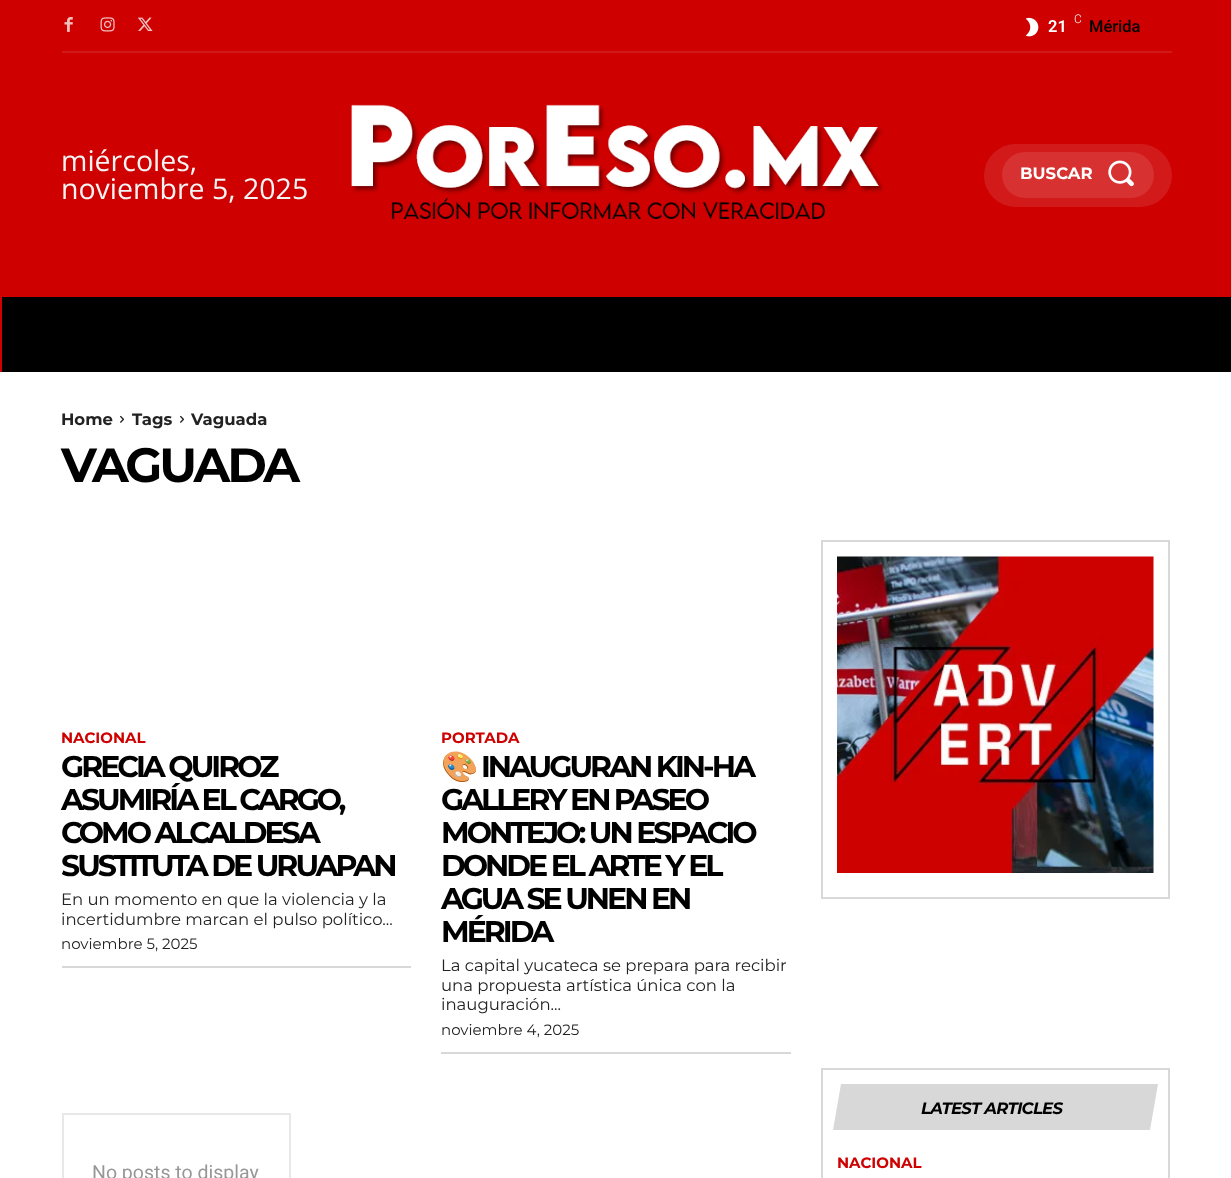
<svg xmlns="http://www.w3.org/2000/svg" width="1231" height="1178">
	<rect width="100%" height="100%" fill="#FFFFFF" />
	<rect x="0" y="0" width="1231" height="372" fill="#CE0000" />
	<rect x="62" y="51" width="1110" height="2" fill="#D31A1A" />
	<image x="64" y="17" width="9" height="15" href="assets/img1.png" />
	<image x="100" y="17" width="15" height="15" href="assets/img2.png" />
	<image x="137" y="17" width="16" height="14" href="assets/img3.png" />
	<image x="1025" y="17" width="14" height="20" href="assets/img4.png" />
	<text x="1074" y="23" font-family="Roboto" font-size="12" font-weight="300" fill="#FFFFFF">C</text>
	<text x="1048" y="32" font-family="Roboto" font-size="16.5" font-weight="600" fill="#FFFFFF">21</text>
	<text x="1089" y="32" font-family="Roboto" font-size="16.5" font-weight="500" fill="#000000">Mérida</text>
	<g font-family="Open Sans" font-size="28.5" fill="#F4F4F4">
		<text x="61" y="171">miércoles,</text>
		<text x="61" y="199">noviembre 5, 2025</text>
	</g>
	<image x="351" y="104" width="533" height="115" href="assets/img5.png" />
	<rect x="984" y="144" width="188" height="63" rx="31.5" fill="#D31A1A" />
	<rect x="1002" y="152" width="152" height="46" rx="23" fill="#D73131" />
	<text x="1020" y="179" font-family="Montserrat" font-size="16.5" font-weight="700" fill="#FFFFFF">BUSCAR</text>
	<image x="1108" y="160" width="26" height="27" href="assets/img6.png" />
	<rect x="2" y="297" width="1229" height="75" fill="#000000" />
	<text x="61" y="425" font-family="Montserrat" font-size="16.5" font-weight="700" fill="#222222">Home</text>
	<image x="120" y="415" width="4" height="8" href="assets/img7.png" />
	<text x="132" y="425" font-family="Montserrat" font-size="16.5" font-weight="700" fill="#222222">Tags</text>
	<image x="180" y="415" width="4" height="8" href="assets/img7.png" />
	<text x="191" y="425" font-family="Montserrat" font-size="16.5" font-weight="700" fill="#222222">Vaguada</text>
	<text x="61" y="482" font-family="Montserrat" font-size="48" font-weight="700" letter-spacing="-3" fill="#000000">VAGUADA</text>
	<rect x="62" y="966" width="349" height="2" fill="#D8D8D8" />
	<text x="61" y="743" font-family="Montserrat" font-size="15" font-weight="700" fill="#CE0000">NACIONAL</text>
	<g font-family="Montserrat" font-size="30" font-weight="700" letter-spacing="-3" fill="#000000">
		<text x="61" y="777">GRECIA QUIROZ</text>
		<text x="61" y="810">ASUMIRÍA EL CARGO,</text>
		<text x="61" y="843">COMO ALCALDESA</text>
		<text x="61" y="876">SUSTITUTA DE URUAPAN</text>
	</g>
	<g font-family="Montserrat" font-size="16.5" fill="#222222">
		<text x="61" y="905">En un momento en que la violencia y la</text>
		<text x="61" y="925">incertidumbre marcan el pulso político...</text>
	</g>
	<text x="61" y="949" font-family="Montserrat" font-size="15" fill="#222222">noviembre 5, 2025</text>
	<rect x="441" y="1052" width="350" height="2" fill="#D8D8D8" />
	<text x="441" y="743" font-family="Montserrat" font-size="15" font-weight="700" fill="#CE0000">PORTADA</text>
	<text x="441" y="777" font-family="Noto Color Emoji" font-size="30" font-weight="700" letter-spacing="-3" fill="#000000">🎨</text>
	<g font-family="Montserrat" font-size="30" font-weight="700" letter-spacing="-3" fill="#000000">
		<text x="481" y="777">INAUGURAN KIN-HA</text>
		<text x="441" y="810">GALLERY EN PASEO</text>
		<text x="441" y="843">MONTEJO: UN ESPACIO</text>
		<text x="441" y="876">DONDE EL ARTE Y EL</text>
		<text x="441" y="909">AGUA SE UNEN EN</text>
		<text x="441" y="942">MÉRIDA</text>
	</g>
	<g font-family="Montserrat" font-size="16.5" fill="#222222">
		<text x="441" y="971">La capital yucateca se prepara para recibir</text>
		<text x="441" y="991">una propuesta artística única con la</text>
		<text x="441" y="1010">inauguración...</text>
	</g>
	<text x="441" y="1035" font-family="Montserrat" font-size="15" fill="#222222">noviembre 4, 2025</text>
	<rect x="822" y="541" width="347" height="357" fill="none" stroke="#D8D8D8" stroke-width="2" />
	<image x="837" y="556" width="317" height="317" href="assets/img8.png" />
	<rect x="822" y="1069" width="347" height="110" fill="none" stroke="#D8D8D8" stroke-width="2" />
	<path d="M841 1084H1158L1150 1130H833Z" fill="#D8D8D8" />
	<text x="921" y="1114" font-family="Montserrat" font-size="16.5" font-weight="700" font-style="italic" letter-spacing="-0.75" fill="#000000">LATEST ARTICLES</text>
	<text x="837" y="1168" font-family="Montserrat" font-size="15" font-weight="700" fill="#CE0000">NACIONAL</text>
	<rect x="63" y="1114" width="227" height="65" fill="none" stroke="#E8E8E8" stroke-width="2" />
	<text x="92" y="1179" font-family="Roboto" font-size="19.5" fill="#979797">No posts to display</text>
</svg>
